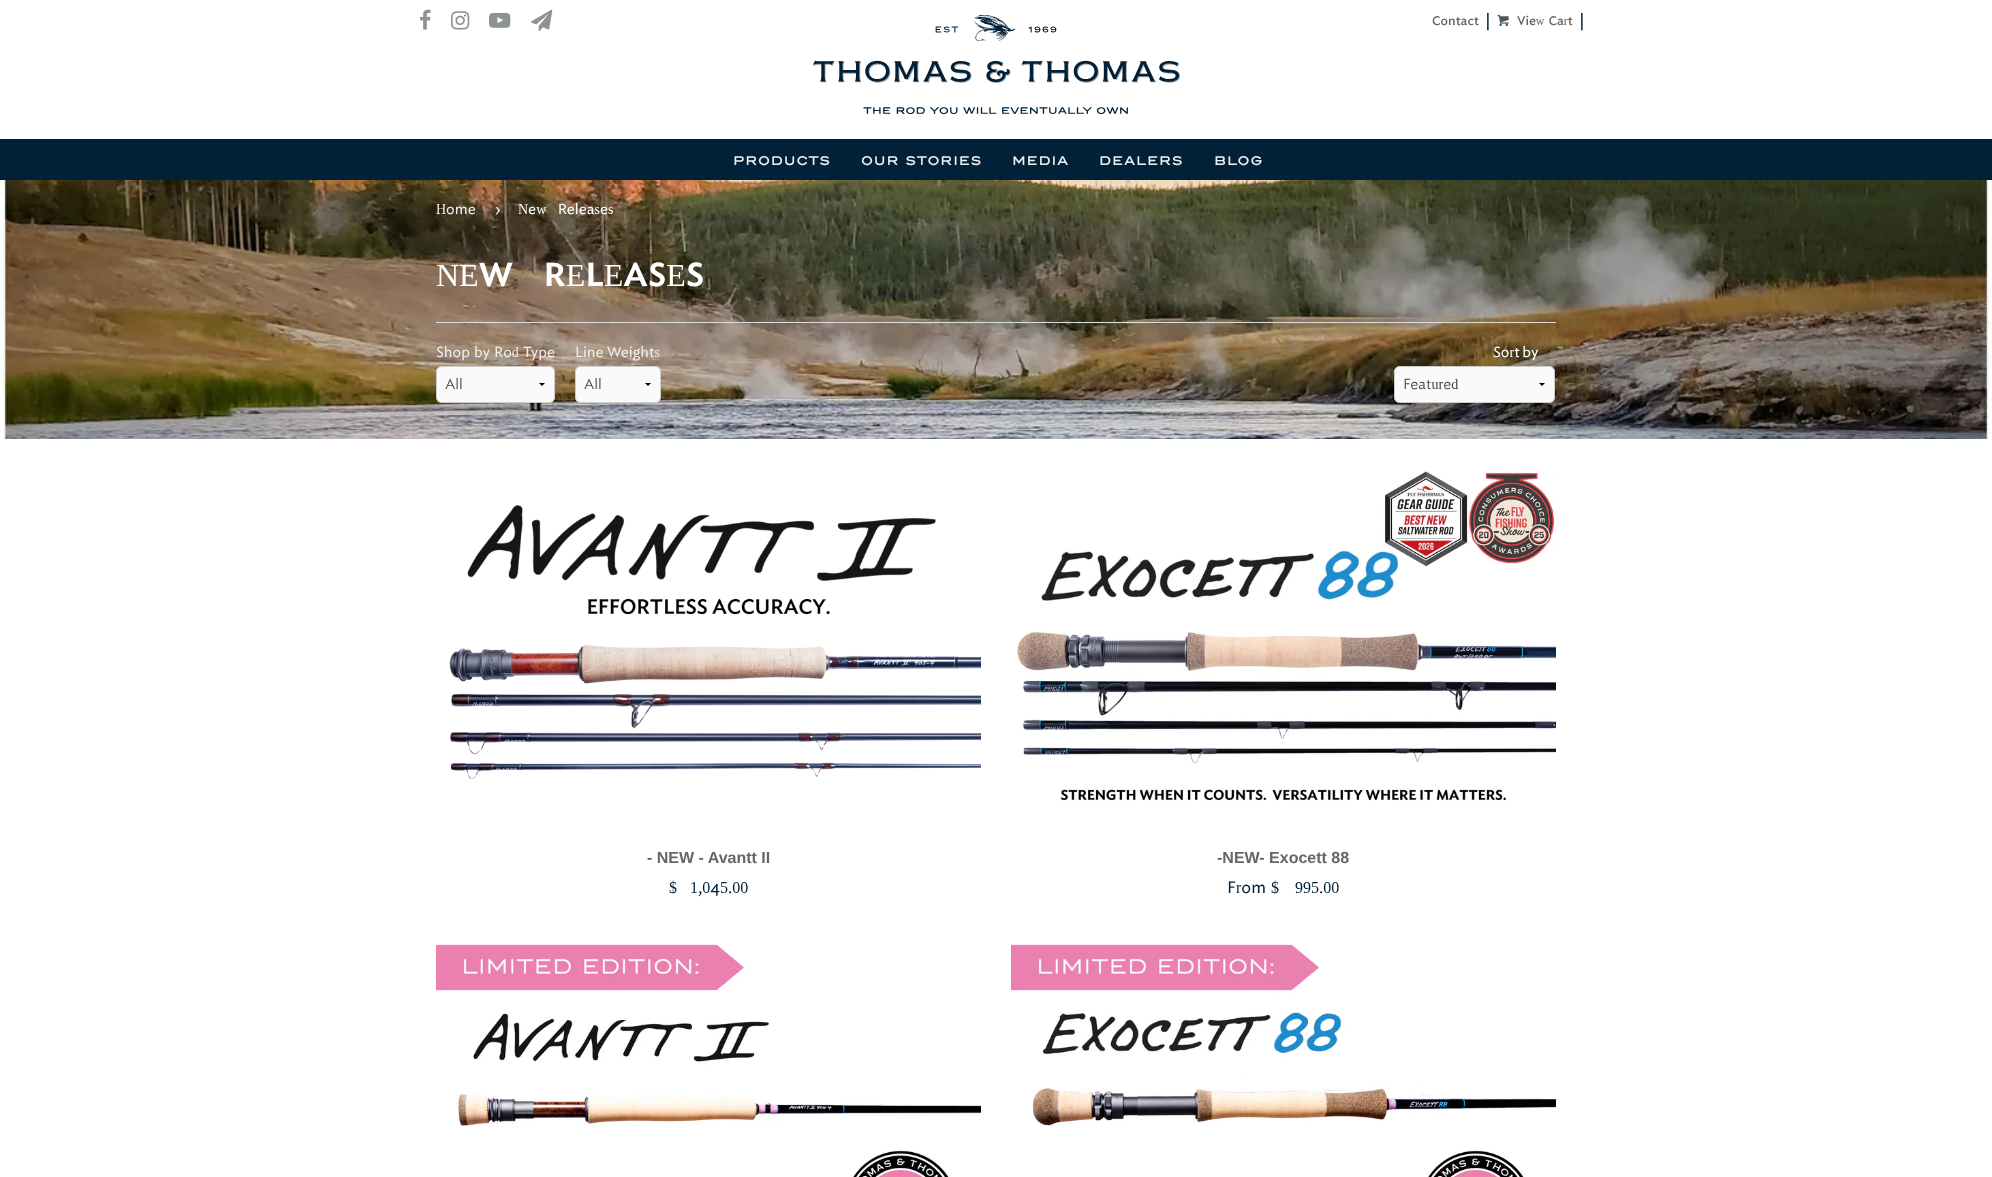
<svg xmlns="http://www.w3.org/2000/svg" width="1992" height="1177">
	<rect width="100%" height="100%" fill="#FFFFFF" />
	<image x="420" y="9" width="11" height="21" href="assets/img1.png" />
	<image x="451" y="11" width="19" height="19" href="assets/img2.png" />
	<image x="489" y="12" width="22" height="16" href="assets/img3.png" />
	<image x="531" y="9" width="22" height="22" href="assets/img4.png" />
	<text x="1432" y="25" font-family="'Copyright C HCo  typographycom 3'" font-size="12" font-weight="300" fill="#666666">Contact</text>
	<text x="1485" y="26" font-family="'Copyright C HCo  typographycom 3'" font-size="16" font-weight="300" fill="#002138">|</text>
	<image x="1497" y="15" width="12" height="11" href="assets/img5.png" />
	<text x="1517" y="25" word-spacing="1" font-family="'Copyright C HCo  typographycom 3'" font-size="12" font-weight="300" fill="#666666">View Cart</text>
	<text x="1579" y="26" font-family="'Copyright C HCo  typographycom 3'" font-size="16" font-weight="300" fill="#002138">|</text>
	<image x="813" y="15" width="367" height="99" href="assets/img6.png" />
	<rect x="0" y="139" width="1992" height="41" fill="#002138" />
	<g font-family="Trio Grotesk" font-size="12" font-weight="500" letter-spacing="0.75" fill="#EEEEEE">
		<text x="733" y="165">PRODUCTS</text>
		<text x="861" y="165">OUR STORIES</text>
		<text x="1012" y="165">MEDIA</text>
		<text x="1099" y="165">DEALERS</text>
		<text x="1214" y="165">BLOG</text>
	</g>
	<image x="0" y="180" width="1992" height="259" href="assets/img7.png" />
	<text x="436" y="214" font-family="'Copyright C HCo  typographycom'" font-size="14" font-weight="300" fill="#EEEEEE">Home</text>
	<g font-family="'Copyright C HCo  typographycom'" font-size="14" font-weight="300" fill="#FFFFFF">
		<text x="495" y="214">›</text>
		<text x="518" y="214" word-spacing="8">New Releases</text>
	</g>
	<text x="436" y="286" word-spacing="23" font-family="'Copyright C HCo  typographycom'" font-size="32" fill="#FFFFFF">NEW RELEASES</text>
	<rect x="436" y="322" width="1120" height="1" fill="#DDDDDD" />
	<text x="436" y="357" word-spacing="0.5" font-family="'Copyright C HCo  typographycom'" font-size="14" font-weight="300" fill="#EEEEEE">Shop by Rod Type</text>
	<rect x="436" y="366" width="119" height="37" rx="6" fill="#FAFAFA" />
	<path d="M545 383L542 386L539 383Z" fill="#000000" />
	<rect x="436.5" y="366.5" width="118" height="36" rx="5.5" fill="none" stroke="#CCCCCC" />
	<text x="445" y="389" font-family="'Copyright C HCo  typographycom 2'" font-size="14" font-weight="300" fill="#3F3F3F">All</text>
	<text x="575" y="357" font-family="'Copyright C HCo  typographycom'" font-size="14" font-weight="300" fill="#EEEEEE">Line Weights</text>
	<rect x="575" y="366" width="86" height="37" rx="6" fill="#FAFAFA" />
	<path d="M651 383L648 386L645 383Z" fill="#000000" />
	<rect x="575.5" y="366.5" width="85" height="36" rx="5.5" fill="none" stroke="#CCCCCC" />
	<text x="584" y="389" font-family="'Copyright C HCo  typographycom 2'" font-size="14" font-weight="300" fill="#3F3F3F">All</text>
	<text x="1493" y="357" word-spacing="-1" font-family="'Copyright C HCo  typographycom'" font-size="14" font-weight="300" fill="#FFFFFF">Sort by</text>
	<rect x="1394" y="366" width="161" height="37" rx="6" fill="#FAFAFA" />
	<path d="M1545 383L1542 386L1539 383Z" fill="#000000" />
	<rect x="1394.5" y="366.5" width="160" height="36" rx="5.5" fill="none" stroke="#CCCCCC" />
	<text x="1403" y="389" font-family="'Copyright C HCo  typographycom 2'" font-size="14" font-weight="300" fill="#3F3F3F">Featured</text>
	<image x="449" y="505" width="532" height="275" href="assets/img8.png" />
	<text x="647" y="863" font-family="Liberation Sans" font-size="16" font-weight="700" fill="#666666">- NEW - Avantt II</text>
	<text x="669" y="893" word-spacing="9" font-family="'Copyright C HCo  typographycom'" font-size="16" font-weight="300" fill="#002138">$ 1,045.00</text>
	<image x="1017" y="469" width="539" height="332" href="assets/img9.png" />
	<text x="1217" y="863" font-family="Liberation Sans" font-size="16" font-weight="700" fill="#666666">-NEW- Exocett 88</text>
	<g font-family="'Copyright C HCo  typographycom'" font-size="16" font-weight="300" fill="#002138">
		<text x="1227" y="893">From</text>
		<text x="1271" y="893" word-spacing="12">$ 995.00</text>
	</g>
	<image x="436" y="943" width="545" height="234" href="assets/img10.png" />
	<image x="1011" y="943" width="545" height="234" href="assets/img11.png" />
</svg>
